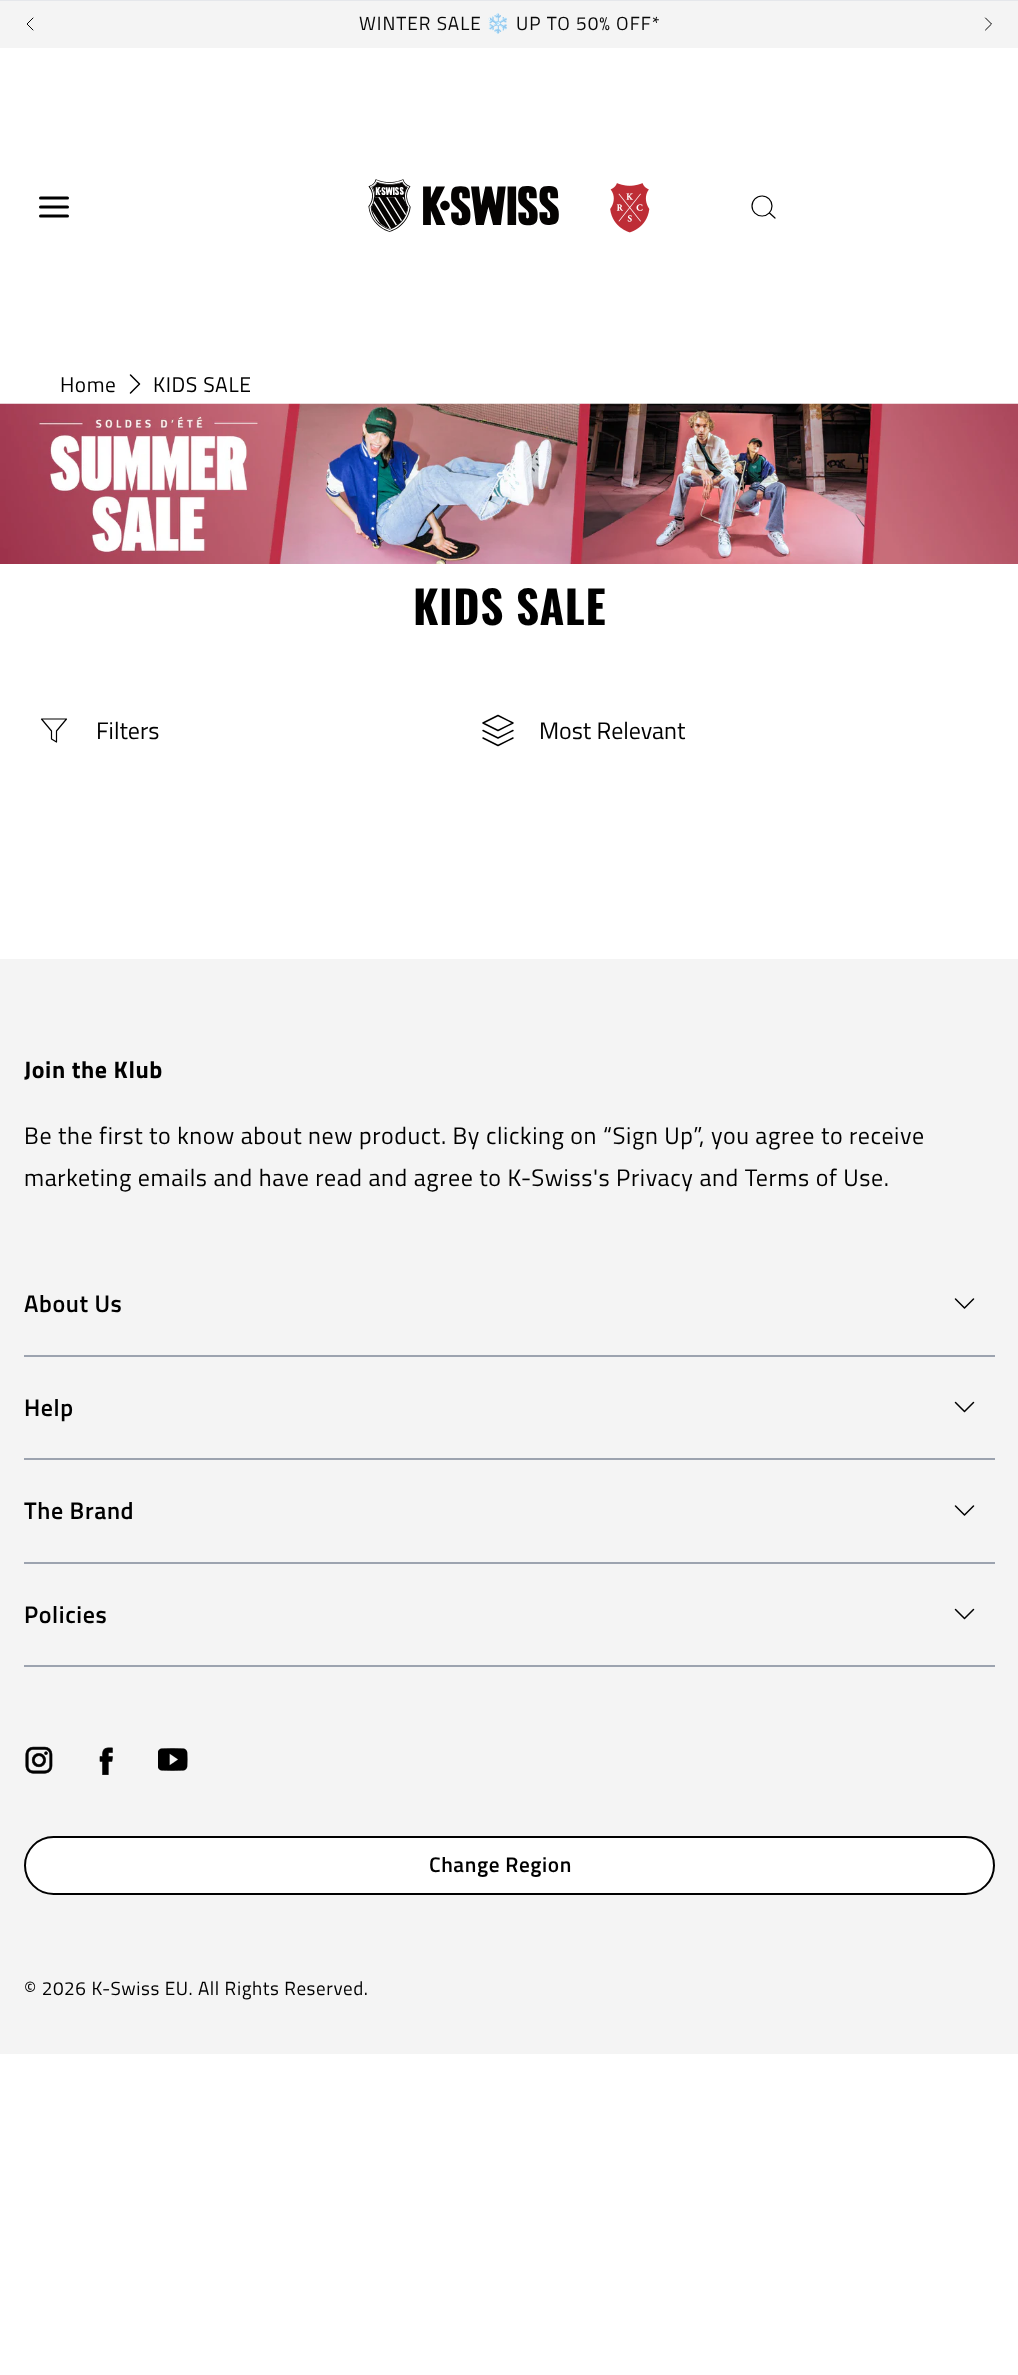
<svg xmlns="http://www.w3.org/2000/svg" width="1018" height="2375">
	<rect width="100%" height="100%" fill="#FFFFFF" />
	<rect x="0" y="0" width="1018" height="1" fill="#E5E7EB" />
	<rect x="0" y="1" width="1018" height="47" fill="#F4F4F4" />
	<path d="M33 30L27 24L33 18" fill="none" stroke="#080808" stroke-linecap="round" stroke-linejoin="round" />
	<text x="359" y="30" font-family="Titillium Web" font-size="19" letter-spacing="1" fill="#080808">WINTER SALE</text>
	<text x="486" y="30" font-family="Noto Color Emoji" font-size="19" letter-spacing="1" fill="#080808">❄️</text>
	<text x="516" y="30" font-family="Titillium Web" font-size="19" letter-spacing="1" fill="#080808">UP TO 50% OFF*</text>
	<path d="M985.5 30L991.5 24L985.5 18" fill="none" stroke="#080808" stroke-linecap="round" stroke-linejoin="round" />
	<path d="M40.5 207H67.5M40.5 198H67.5M40.5 216H67.5" fill="none" stroke="#000000" stroke-width="3" stroke-linecap="round" stroke-linejoin="round" />
	<image x="368" y="179" width="191" height="53" href="assets/img1.png" />
	<image x="610" y="183" width="40" height="50" href="assets/img2.png" />
	<circle cx="762" cy="206" r="10" fill="none" stroke="#000000" stroke-width="1.2" />
	<path d="M775 218L769.5 213" fill="none" stroke="#000000" stroke-width="1.2" stroke-linecap="round" stroke-linejoin="round" />
	<text x="60" y="392" font-family="Titillium Web" font-size="21.25" letter-spacing="0.6" fill="#000000">Home</text>
	<path d="M130.5 393L139.5 384L130.5 375" fill="none" stroke="#000000" stroke-width="1.5" stroke-linecap="round" stroke-linejoin="round" />
	<text x="153" y="392" font-family="Titillium Web" font-size="21.25" letter-spacing="0.6" fill="#000000">KIDS SALE</text>
	<image x="0" y="403" width="1018" height="161" href="assets/img3.png" />
	<text x="413" y="625" font-family="Oswald" font-size="45" font-weight="700" letter-spacing="0.6" fill="#000000">KIDS SALE</text>
	<path d="M66.5 719H41.5L51.5 731V739L56.5 742V731Z" fill="none" stroke="#000000" stroke-width="1.2" stroke-linecap="round" stroke-linejoin="round" />
	<text x="96" y="739" font-family="Titillium Web" font-size="24" fill="#000000">Filters</text>
	<path d="M498 715.5L483 723L498 730.5L513 723ZM483 738L498 745.5L513 738M483 730.5L498 738L513 730.5" fill="none" stroke="#000000" stroke-width="1.5" stroke-linecap="round" stroke-linejoin="round" />
	<text x="539" y="739" font-family="Titillium Web" font-size="24" fill="#000000">Most Relevant</text>
	<rect x="0" y="959" width="1018" height="1095" fill="#F4F4F4" />
	<text x="24" y="1078" font-family="Titillium Web" font-size="24" font-weight="700" letter-spacing="0.6" fill="#000000">Join the Klub</text>
	<g font-family="Titillium Web" font-size="24" letter-spacing="0.6" fill="#000000">
		<text x="24" y="1144">Be the first to know about new product. By clicking on “Sign Up”, you agree to receive</text>
		<text x="24" y="1186">marketing emails and have read and agree to K-Swiss's Privacy and Terms of Use.</text>
	</g>
	<rect x="24" y="1355" width="971" height="2" fill="#9CA3AF" />
	<text x="24" y="1312" font-family="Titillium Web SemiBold" font-size="24" font-weight="600" letter-spacing="0.6" fill="#000000">About Us</text>
	<path d="M955.5 1299L964.5 1308L973.5 1299" fill="none" stroke="#000000" stroke-width="1.5" stroke-linecap="round" stroke-linejoin="round" />
	<rect x="24" y="1458" width="971" height="2" fill="#9CA3AF" />
	<text x="24" y="1416" font-family="Titillium Web SemiBold" font-size="24" font-weight="600" letter-spacing="0.6" fill="#000000">Help</text>
	<path d="M955.5 1402.5L964.5 1411.5L973.5 1402.5" fill="none" stroke="#000000" stroke-width="1.5" stroke-linecap="round" stroke-linejoin="round" />
	<rect x="24" y="1562" width="971" height="2" fill="#9CA3AF" />
	<text x="24" y="1519" font-family="Titillium Web SemiBold" font-size="24" font-weight="600" letter-spacing="0.6" fill="#000000">The Brand</text>
	<path d="M955.5 1506L964.5 1515L973.5 1506" fill="none" stroke="#000000" stroke-width="1.5" stroke-linecap="round" stroke-linejoin="round" />
	<rect x="24" y="1665" width="971" height="2" fill="#9CA3AF" />
	<text x="24" y="1623" font-family="Titillium Web SemiBold" font-size="24" font-weight="600" letter-spacing="0.6" fill="#000000">Policies</text>
	<path d="M955.5 1609.5L964.5 1618.5L973.5 1609.5" fill="none" stroke="#000000" stroke-width="1.5" stroke-linecap="round" stroke-linejoin="round" />
	<image x="25" y="1746" width="28" height="28" href="assets/img4.png" />
	<image x="99" y="1747" width="14" height="28" href="assets/img5.png" />
	<image x="158" y="1748" width="30" height="23" href="assets/img6.png" />
	<rect x="25" y="1837" width="969" height="57" rx="28.5" fill="#FFFFFF" stroke="#000000" stroke-width="2" />
	<text x="429" y="1872" font-family="Titillium Web SemiBold" font-size="21.25" font-weight="600" letter-spacing="0.6" fill="#000000">Change Region</text>
	<text x="24" y="1995" font-family="Titillium Web" font-size="19" letter-spacing="0.6" fill="#000000">© 2026 K-Swiss EU. All Rights Reserved.</text>
</svg>
